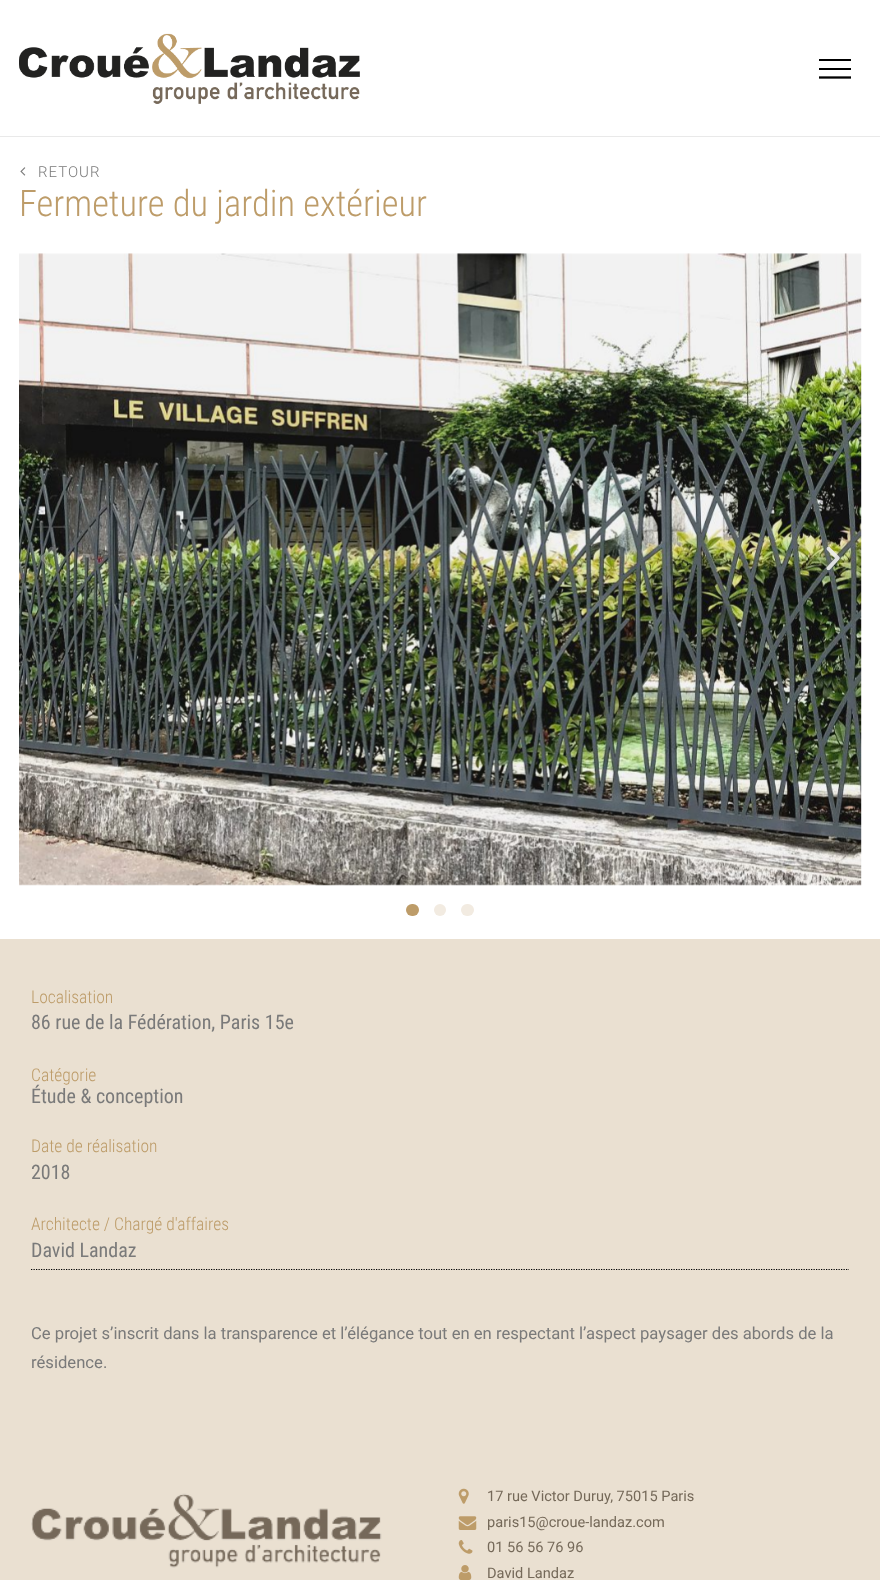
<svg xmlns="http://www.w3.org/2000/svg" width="880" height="1580">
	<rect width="100%" height="100%" fill="#FFFFFF" />
	<rect x="0" y="136" width="880" height="1" fill="#E9E9E9" />
	<image x="19" y="33" width="341" height="71" href="assets/img1.png" />
	<rect x="819" y="59" width="32" height="2" fill="#000000" />
	<path d="M819 77.5H851" fill="none" stroke="#000000" stroke-width="2.3" />
	<rect x="819" y="68" width="32" height="2" fill="#000000" />
	<image x="20" y="167" width="6" height="9" href="assets/img2.png" />
	<text x="38" y="177" font-family="Roboto" font-size="15" font-weight="300" letter-spacing="1" fill="#7A7A7A">RETOUR</text>
	<text x="19" y="216" font-family="Roboto Condensed" font-size="36.5" font-weight="300" fill="#BD9C69">Fermeture du jardin extérieur</text>
	<image x="19" y="253" width="843" height="633" href="assets/img3.png" />
	<image x="40" y="546" width="14" height="24" href="assets/img4.png" />
	<image x="826" y="546" width="14" height="25" href="assets/img5.png" />
	<rect x="406" y="904" width="13" height="12" rx="6" fill="#BD9C69" />
	<circle cx="440" cy="910" r="6" fill="#F2EBE1" />
	<rect x="461" y="904" width="13" height="12" rx="6" fill="#F2EBE1" />
	<rect x="0" y="939" width="880" height="641" fill="#EAE0D1" />
	<text x="31" y="1003" font-family="Roboto Condensed" font-size="17.5" font-weight="300" fill="#BD9C69">Localisation</text>
	<text x="31" y="1029" font-family="Roboto Condensed" font-size="20" fill="#7A7A7A">86 rue de la Fédération, Paris 15e</text>
	<text x="31" y="1081" font-family="Roboto Condensed" font-size="17.5" font-weight="300" fill="#BD9C69">Catégorie</text>
	<text x="31" y="1103" font-family="Roboto Condensed" font-size="20" fill="#7A7A7A">Étude &amp; conception</text>
	<text x="31" y="1152" font-family="Roboto Condensed" font-size="17.5" font-weight="300" fill="#BD9C69">Date de réalisation</text>
	<text x="31" y="1179" font-family="Roboto Condensed" font-size="20" fill="#7A7A7A">2018</text>
	<text x="31" y="1230" font-family="Roboto Condensed" font-size="17.5" font-weight="300" fill="#BD9C69">Architecte / Chargé d'affaires</text>
	<text x="31" y="1257" font-family="Roboto Condensed" font-size="20" fill="#7A7A7A">David Landaz</text>
	<path d="M31 1269.5H849" fill="none" stroke="#000000" stroke-width="1.2" stroke-dasharray="1.25 1.25" />
	<g font-family="Roboto" font-size="16.65" fill="#7A7A7A">
		<text x="31" y="1339">Ce projet s’inscrit dans la transparence et l’élégance tout en en respectant l’aspect paysager des abords de la</text>
		<text x="31" y="1368">résidence.</text>
	</g>
	<image x="31" y="1493" width="351" height="75" href="assets/img6.png" />
	<image x="458" y="1488" width="11" height="16" href="assets/img7.png" />
	<text x="487" y="1501" font-family="Roboto" font-size="14.6" fill="#756959">17 rue Victor Duruy, 75015 Paris</text>
	<image x="458" y="1516" width="19" height="14" href="assets/img8.png" />
	<text x="487" y="1527" font-family="Roboto" font-size="14.6" fill="#756959">paris15@croue-landaz.com</text>
	<image x="458" y="1540" width="15" height="14" href="assets/img9.png" />
	<text x="487" y="1552" font-family="Roboto" font-size="14.6" fill="#756959">01 56 56 76 96</text>
	<image x="458" y="1565" width="14" height="15" href="assets/img10.png" />
	<text x="487" y="1578" font-family="Roboto" font-size="14.6" fill="#756959">David Landaz</text>
</svg>
